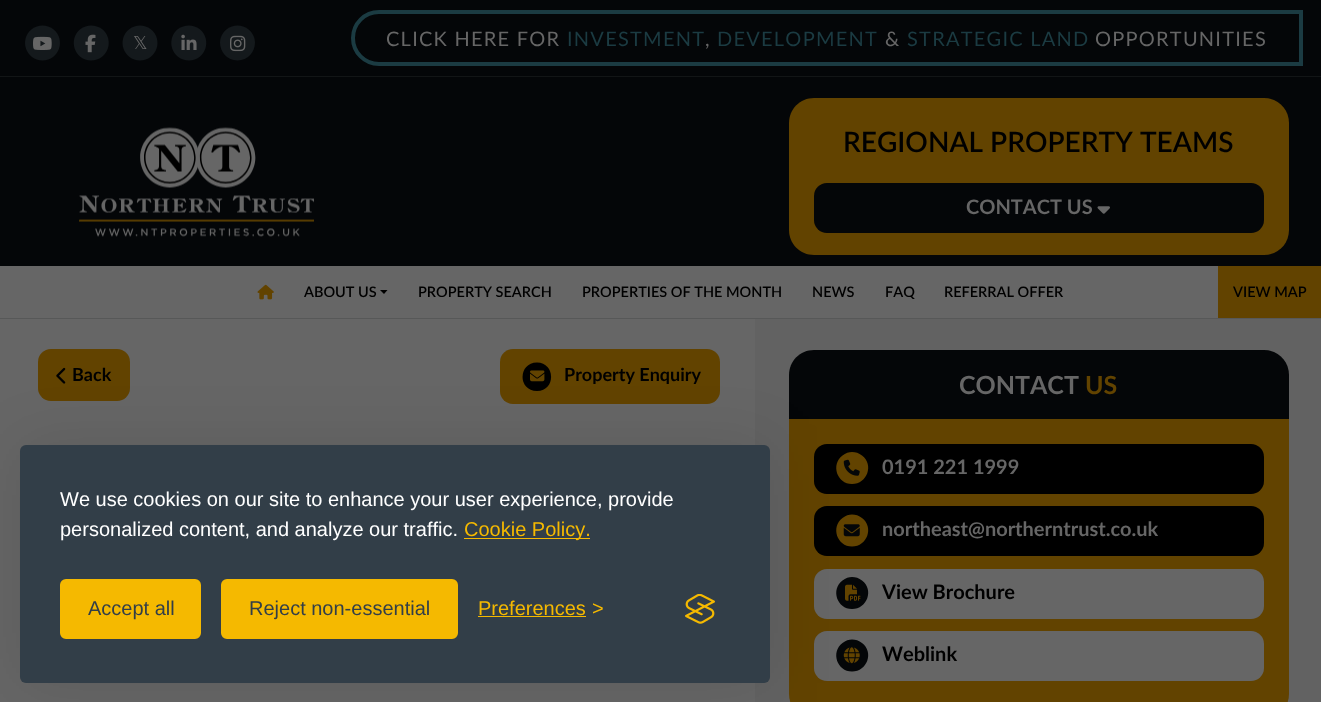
<svg xmlns="http://www.w3.org/2000/svg" width="1321" height="702">
	<style>*{font-kerning:none!important;font-variant-ligatures:none!important}</style>
	<rect width="100%" height="100%" fill="#040608" />
	<rect x="0" y="76" width="1321" height="1" fill="#121516" />
	<path d="M42.5 60.5C59 60.5 66.5 39.5 53 29C50 27 46.5 25.5 42.5 25.5C38.5 25.5 35 27 32 29C18.5 39.5 26 60.5 42.5 60.5Z" fill="#14191C" />
	<image x="33" y="36" width="19" height="14" href="assets/img1.png" />
	<path d="M91 60.5C108 60.5 115 39.5 102 29C99 27 95 25.5 91 25.5C87.5 25.5 83.5 27 80.5 29C67.5 39.5 74.5 60.5 91 60.5Z" fill="#14191C" />
	<image x="85" y="34" width="11" height="19" href="assets/img2.png" />
	<path d="M140 60.5C156.5 60.5 164 39.5 150.5 29C147.5 27 144 25.5 140 25.5C136 25.5 132.5 27 129.5 29C116 39.5 123.5 60.5 140 60.5Z" fill="#14191C" />
	<text x="133" y="49" font-family="DejaVu Sans" font-size="18" fill="#666666">𝕏</text>
	<path d="M189 60.5C205.5 60.5 212.5 39.5 199.5 29C196.5 27 192.5 25.5 189 25.5C185 25.5 181 27 178 29C165 39.5 172 60.5 189 60.5Z" fill="#14191C" />
	<image x="181" y="34" width="16" height="16" href="assets/img3.png" />
	<path d="M237.5 60.5C254 60.5 261.5 39.5 248 29C245 27 241.5 25.5 237.5 25.5C233.5 25.5 230 27 227 29C213.5 39.5 221 60.5 237.5 60.5Z" fill="#14191C" />
	<image x="230" y="35" width="16" height="17" href="assets/img4.png" />
	<path d="M379 12H1301V64H379C364.5 64 353 52.5 353 38C353 23.5 364.5 12 379 12Z" fill="none" stroke="#1B3B42" stroke-width="4" />
	<text x="386" y="46" font-family="Lato" font-size="20" letter-spacing="1.25" fill="#666666">CLICK HERE FOR</text>
	<text x="567" y="46" font-family="Lato" font-size="20" letter-spacing="1.25" fill="#1B3B42">INVESTMENT</text>
	<text x="705" y="46" font-family="Lato" font-size="20" letter-spacing="1.25" fill="#666666">,</text>
	<text x="717" y="46" font-family="Lato" font-size="20" letter-spacing="1.25" fill="#1B3B42">DEVELOPMENT</text>
	<text x="885" y="46" font-family="Lato" font-size="20" letter-spacing="1.25" fill="#666666">&amp;</text>
	<text x="907" y="46" font-family="Lato" font-size="20" letter-spacing="1.25" fill="#1B3B42">STRATEGIC LAND</text>
	<text x="1095" y="46" font-family="Lato" font-size="20" letter-spacing="1.25" fill="#666666">OPPORTUNITIES</text>
	<image x="79" y="127" width="235" height="110" href="assets/img5.png" />
	<path d="M814 98H1264C1278 98 1289 109 1289 123V183H789V123C789 109 800 98 814 98Z" fill="#624300" />
	<text x="843" y="152" font-family="Lato" font-size="28" font-weight="600" fill="#000000">REGIONAL PROPERTY TEAMS</text>
	<path d="M789 183H1289V230C1289 244 1278 255 1264 255H814C800 255 789 244 789 230Z" fill="#624300" />
	<rect x="814" y="183" width="450" height="50" rx="13" fill="#040608" />
	<text x="966" y="214" font-family="Lato" font-size="20" font-weight="700" fill="#666666">CONTACT US</text>
	<image x="1097" y="206" width="13" height="8" href="assets/img6.png" />
	<rect x="0" y="266" width="1218" height="52" fill="#666666" />
	<rect x="0" y="318" width="1321" height="1" fill="#575858" />
	<image x="257" y="284" width="17" height="16" href="assets/img7.png" />
	<text x="304" y="297" font-family="Lato" font-size="14.5" font-weight="600" fill="#000000">ABOUT US</text>
	<path d="M380 290H387.5L384 294Z" fill="#000000" />
	<g font-family="Lato" font-size="14.5" font-weight="600" fill="#000000">
		<text x="418" y="297">PROPERTY SEARCH</text>
		<text x="582" y="297">PROPERTIES OF THE MONTH</text>
		<text x="812" y="297">NEWS</text>
		<text x="885" y="297">FAQ</text>
		<text x="944" y="297">REFERRAL OFFER</text>
	</g>
	<rect x="1218" y="266" width="103" height="52" fill="#624300" />
	<text x="1233" y="297" font-family="Lato" font-size="14.5" font-weight="600" fill="#000000">VIEW MAP</text>
	<rect x="0" y="319" width="755" height="383" fill="#666666" />
	<rect x="38" y="349" width="92" height="52" rx="13" fill="#624300" />
	<image x="56" y="367" width="10" height="17" href="assets/img8.png" />
	<text x="72" y="381" font-family="Lato" font-size="18" font-weight="700" fill="#000000">Back</text>
	<rect x="500" y="349" width="220" height="55" rx="13" fill="#624300" />
	<path d="M537 391C556 391 555.5 362.5 537 362.5C518 362.5 517.5 391 537 391Z" fill="#000000" />
	<image x="530" y="370" width="15" height="12" href="assets/img9.png" />
	<text x="564" y="381" font-family="Lato" font-size="18" font-weight="700" fill="#000000">Property Enquiry</text>
	<rect x="755" y="319" width="566" height="383" fill="#626262" />
	<path d="M814 350H1264C1278 350 1289 361 1289 375V419H789V375C789 361 800 350 814 350Z" fill="#040608" />
	<text x="959" y="394" font-family="Lato" font-size="25" font-weight="700" fill="#666666">CONTACT</text>
	<text x="1085" y="394" font-family="Lato" font-size="25" font-weight="700" fill="#624300">US</text>
	<path d="M789 419H1289V694C1289 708 1278 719 1264 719H814C800 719 789 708 789 694Z" fill="#624300" />
	<rect x="814" y="444" width="450" height="50" rx="13" fill="#000000" />
	<path d="M852 484C867.5 484 874 464.5 862 455.5C859 453 855.5 452 852 452C849 452 845.5 453 842.5 455.5C830.5 464.5 837 484 852 484Z" fill="#624300" />
	<image x="843" y="459" width="17" height="17" href="assets/img10.png" />
	<text x="882" y="474" font-family="Lato" font-size="20" font-weight="700" fill="#666666">0191 221 1999</text>
	<rect x="814" y="506" width="450" height="50" rx="13" fill="#000000" />
	<path d="M852 546.5C867.5 546.5 874 527 862 518C859 515.5 855.5 514.5 852 514.5C849 514.5 845.5 515.5 842.5 518C830.5 527 837 546.5 852 546.5Z" fill="#624300" />
	<image x="843" y="524" width="17" height="13" href="assets/img11.png" />
	<text x="882" y="536" font-family="Lato" font-size="20" font-weight="700" fill="#666666">northeast@northerntrust.co.uk</text>
	<rect x="814" y="569" width="450" height="50" rx="13" fill="#666666" />
	<path d="M852 609C867.5 609 874 589.5 862 580.5C859 578 855.5 577 852 577C849 577 845.5 578 842.5 580.5C830.5 589.5 837 609 852 609Z" fill="#040608" />
	<image x="845" y="584" width="16" height="17" href="assets/img12.png" />
	<text x="882" y="599" font-family="Lato" font-size="20" font-weight="700" fill="#000000">View Brochure</text>
	<rect x="814" y="631" width="450" height="50" rx="13" fill="#666666" />
	<path d="M852 671.5C867.5 671.5 874 652 862 643C859 640.5 855.5 639.5 852 639.5C849 639.5 845.5 640.5 842.5 643C830.5 652 837 671.5 852 671.5Z" fill="#040608" />
	<image x="843" y="647" width="17" height="17" href="assets/img13.png" />
	<text x="882" y="661" font-family="Lato" font-size="20" font-weight="700" fill="#000000">Weblink</text>
	<rect x="20" y="445" width="750" height="238" rx="6" fill="#000000" fill-opacity="0.1" filter="blur(31px)" />
	<rect x="20" y="445" width="750" height="238" rx="6" fill="#323E48" />
	<g font-family="Liberation Sans" font-size="20" fill="#FFFFFF">
		<text x="60" y="506">We use cookies on our site to enhance your user experience, provide</text>
		<text x="60" y="536">personalized content, and analyze our traffic.</text>
	</g>
	<rect x="464" y="538" width="126" height="1" fill="#F5B900" />
	<text x="464" y="536" font-family="Liberation Sans" font-size="20" fill="#F5B900">Cookie Policy.</text>
	<rect x="61.5" y="580.5" width="138" height="57" rx="4.5" fill="#F5B900" stroke="#F5B900" stroke-width="3" />
	<text x="88" y="615" font-family="Liberation Sans" font-size="20" fill="#323E48">Accept all</text>
	<rect x="222.5" y="580.5" width="234" height="57" rx="4.5" fill="#F5B900" stroke="#F5B900" stroke-width="3" />
	<text x="249" y="615" font-family="Liberation Sans" font-size="20" fill="#323E48">Reject non-essential</text>
	<text x="478" y="615" font-family="Liberation Sans" font-size="20" fill="#F5B900">Preferences</text>
	<rect x="478" y="616" width="108" height="1" fill="#F5B900" />
	<text x="592" y="615" font-family="Liberation Sans" font-size="20" fill="#F5B900">&gt;</text>
	<image x="685" y="594" width="30" height="30" href="assets/img14.png" />
</svg>
